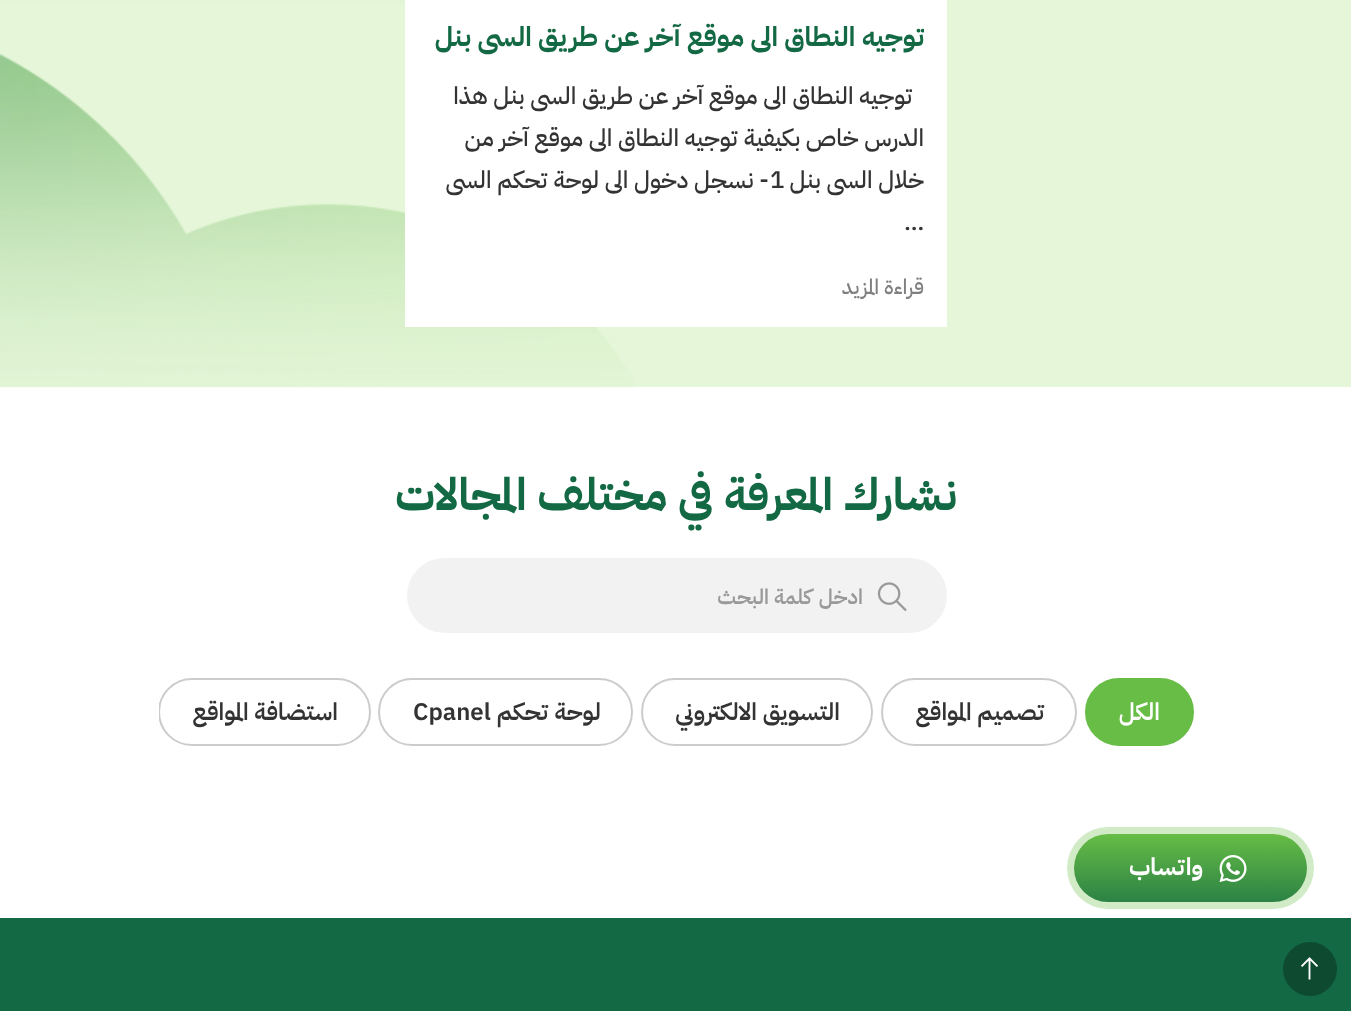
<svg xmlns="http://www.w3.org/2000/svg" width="1351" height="1011">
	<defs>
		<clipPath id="clip1"><rect x="428" y="21" width="496" height="35" /></clipPath>
		<clipPath id="clip2"><rect x="159" y="678" width="1035" height="75" /></clipPath>
		<linearGradient id="g1" gradientUnits="userSpaceOnUse" x1="1190" y1="902" x2="1190" y2="834"><stop offset="0" stop-color="#136944" /><stop offset="1" stop-color="#67BD46" /></linearGradient>
	</defs>
	<rect width="100%" height="100%" fill="#FFFFFF" />
	<rect x="0" y="0" width="1351" height="387" fill="#E6F7D9" />
	<image x="0" y="0" width="405" height="4" href="assets/img1.png" />
	<image x="0" y="54" width="635" height="334" href="assets/img2.png" />
	<rect x="405" y="0" width="542" height="327" fill="#FFFFFF" />
	<g clip-path="url(#clip1)">
		<text x="924" y="46" font-family="IBM Plex Sans Arabic" font-size="27" font-weight="700" direction="rtl" fill="#136944">توجيه النطاق الى موقع آخر عن طريق السى بنل</text>
	</g>
	<g font-family="IBM Plex Sans Arabic" font-size="24" font-weight="500" direction="rtl" fill="#333333">
		<text x="912" y="104">توجيه النطاق الى موقع آخر عن طريق السى بنل هذا</text>
		<text x="924" y="146">الدرس خاص بكيفية توجيه النطاق الى موقع آخر من</text>
		<text x="924" y="188">خلال السى بنل</text>
	</g>
	<text x="770" y="188" font-family="IBM Plex Sans Arabic" font-size="24" font-weight="500" fill="#333333">1</text>
	<text x="769" y="188" font-family="IBM Plex Sans Arabic" font-size="24" font-weight="500" direction="rtl" fill="#333333">- نسجل دخول الى لوحة تحكم السى</text>
	<text x="904" y="230" font-family="IBM Plex Sans Arabic" font-size="24" font-weight="500" fill="#333333">…</text>
	<text x="924" y="294" font-family="IBM Plex Sans Arabic" font-size="21" font-weight="500" direction="rtl" fill="#808080">قراءة المزيد</text>
	<rect x="0" y="918" width="1351" height="93" fill="#136944" />
	<text x="957" y="510" font-family="IBM Plex Sans Arabic" font-size="45" font-weight="700" direction="rtl" fill="#136944">نشارك المعرفة في مختلف المجالات</text>
	<rect x="408.5" y="559.5" width="537" height="72" rx="36" fill="#F2F2F2" stroke="#F2F2F2" stroke-width="3" />
	<image x="877" y="582" width="30" height="30" href="assets/img3.png" />
	<text x="863" y="604" font-family="IBM Plex Sans Arabic" font-size="21" font-weight="600" direction="rtl" fill="#999999">ادخل كلمة البحث</text>
	<rect x="1086" y="679" width="107" height="66" rx="33" fill="#67BD46" stroke="#67BD46" stroke-width="2" />
	<text x="1160" y="720" font-family="IBM Plex Sans Arabic" font-size="24" font-weight="600" direction="rtl" fill="#FFFFFF">الكل</text>
	<rect x="882" y="679" width="194" height="66" rx="33" fill="none" stroke="#CCCCCC" stroke-width="2" />
	<text x="1044" y="720" font-family="IBM Plex Sans Arabic" font-size="24" font-weight="600" direction="rtl" fill="#333333">تصميم المواقع</text>
	<rect x="642" y="679" width="230" height="66" rx="33" fill="none" stroke="#CCCCCC" stroke-width="2" />
	<text x="840" y="720" font-family="IBM Plex Sans Arabic" font-size="24" font-weight="600" direction="rtl" fill="#333333">التسويق الالكتروني</text>
	<rect x="379" y="679" width="253" height="66" rx="33" fill="none" stroke="#CCCCCC" stroke-width="2" />
	<text x="601" y="720" font-family="IBM Plex Sans Arabic" font-size="24" font-weight="600" direction="rtl" fill="#333333">لوحة تحكم</text>
	<text x="413" y="720" font-family="IBM Plex Sans Arabic" font-size="24" font-weight="600" fill="#333333">Cpanel</text>
	<g clip-path="url(#clip2)">
		<rect x="159" y="679" width="211" height="66" rx="33" fill="none" stroke="#CCCCCC" stroke-width="2" />
	</g>
	<text x="338" y="720" font-family="IBM Plex Sans Arabic" font-size="24" font-weight="600" direction="rtl" fill="#333333">استضافة المواقع</text>
	<rect x="1074" y="834" width="233" height="68" rx="34" fill="url(#g1)" />
	<rect x="1067" y="827" width="247" height="82" rx="41" fill="#67BD46" fill-opacity="0.3" />
	<image x="1219" y="855" width="28" height="27" href="assets/img4.png" />
	<text x="1203" y="875" font-family="IBM Plex Sans Arabic" font-size="24" font-weight="700" direction="rtl" fill="#FFFFFF">واتساب</text>
	<circle cx="1310" cy="969" r="27" fill="#0D4A30" />
	<image x="1301" y="957" width="17" height="23" href="assets/img5.png" />
</svg>
